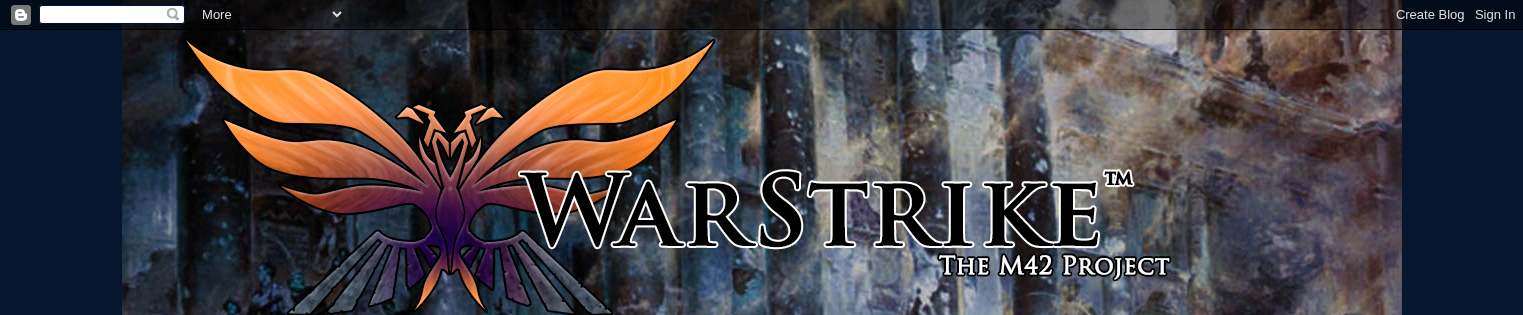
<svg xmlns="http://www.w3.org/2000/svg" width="1523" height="315">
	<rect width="100%" height="100%" fill="#06162C" />
	<image x="122" y="0" width="1280" height="315" href="assets/img2.png" />
	<image x="0" y="0" width="1523" height="30" href="assets/img1.png" />
	<image x="185" y="38" width="987" height="277" href="assets/img3.png" />
</svg>
